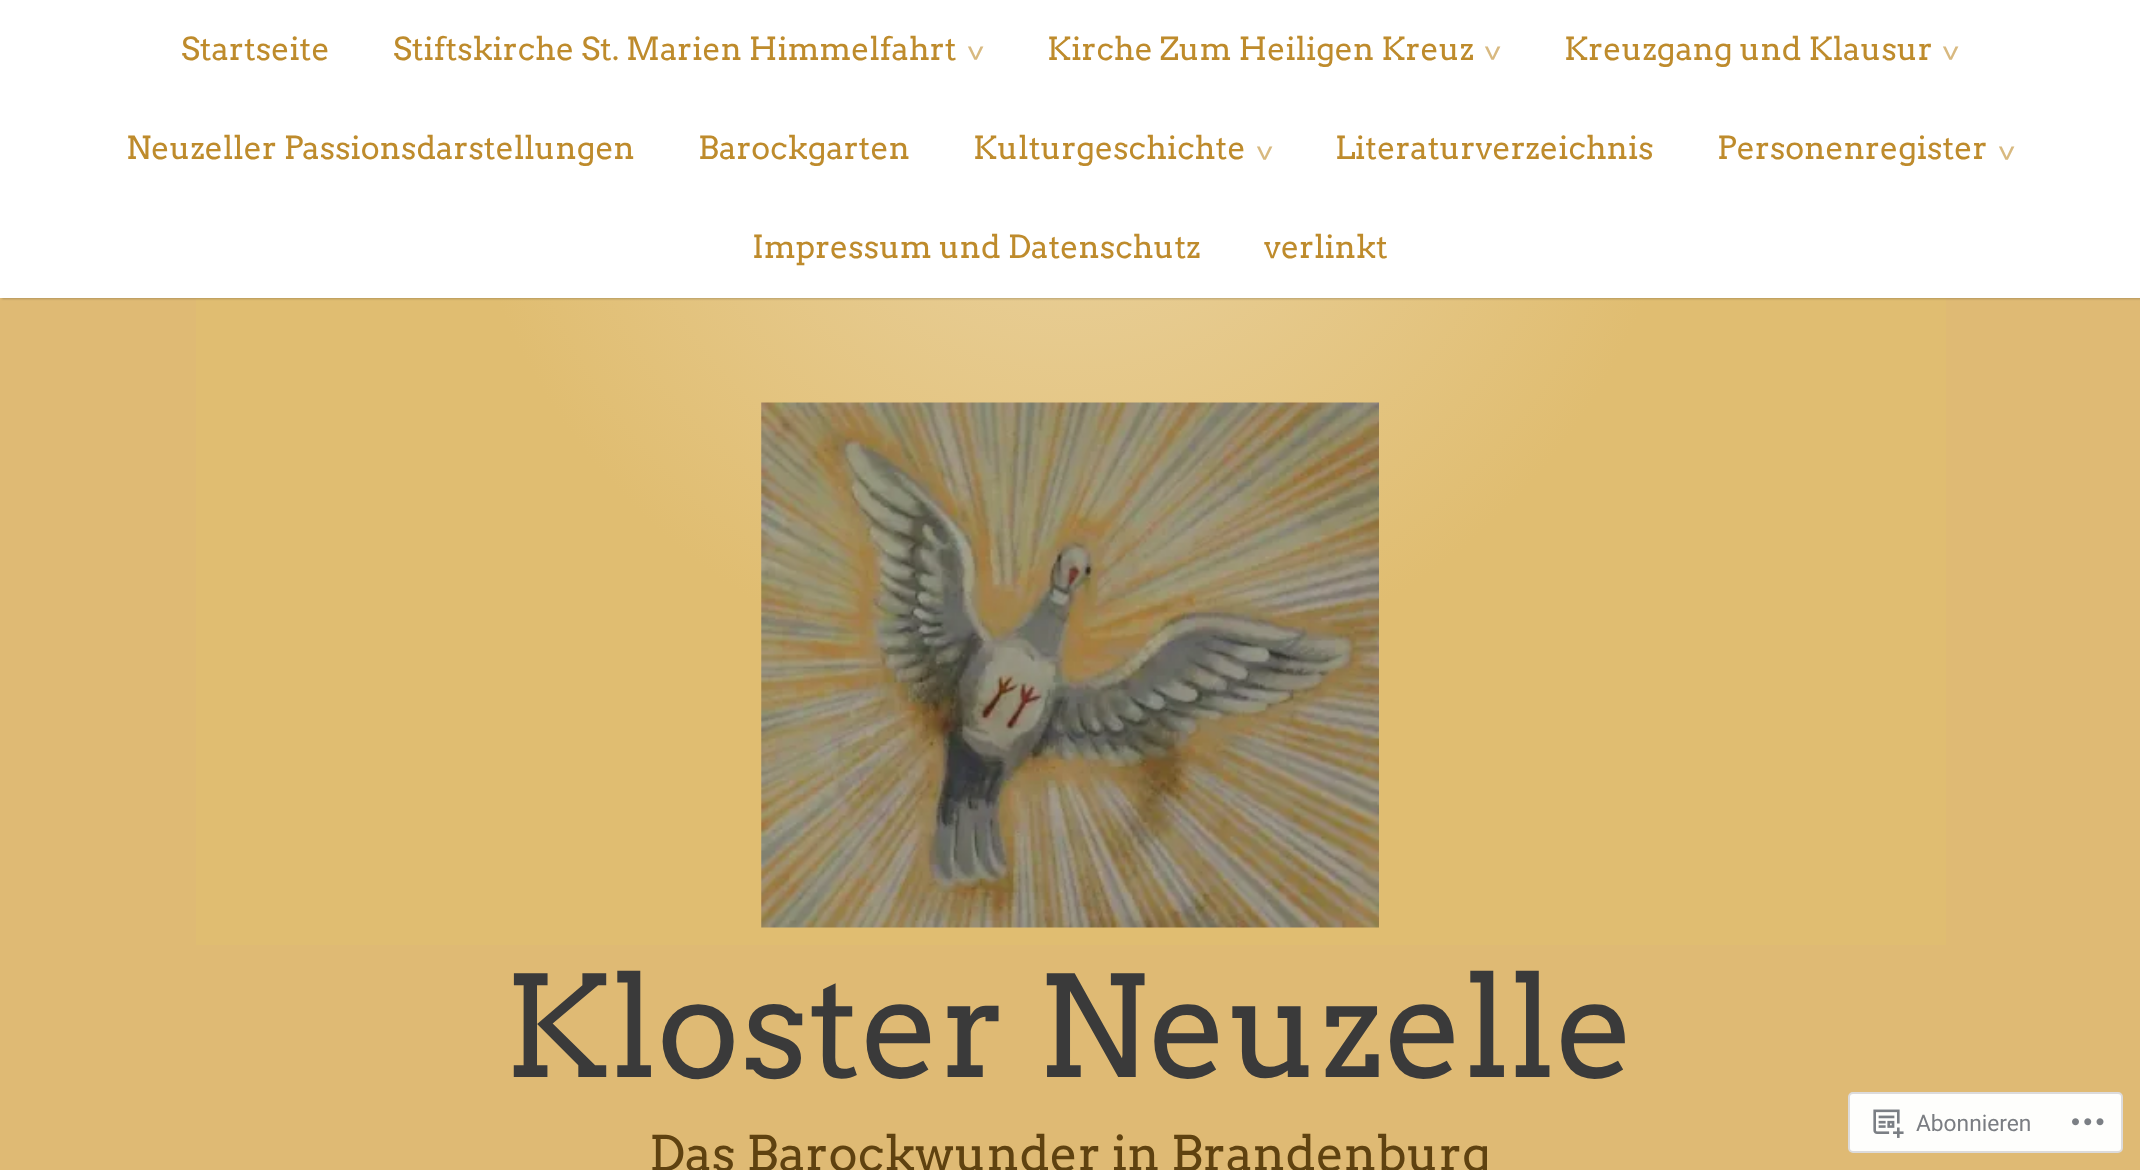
<svg xmlns="http://www.w3.org/2000/svg" width="2140" height="1170">
	<defs>
		<radialGradient id="g1" gradientUnits="userSpaceOnUse" cx="1071" cy="70" r="1237"><stop offset="0" stop-color="#EBD4A3" /><stop offset="0.5" stop-color="#E0BD71" /><stop offset="1" stop-color="#E0BD71" /></radialGradient>
	</defs>
	<rect width="100%" height="100%" fill="#DFBA74" />
	<rect x="196" y="298" width="1750" height="647" fill="url(#g1)" />
	<rect x="2" y="2" width="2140" height="297" fill="#000000" fill-opacity="0.2" filter="blur(1px)" />
	<rect x="0" y="0" width="2140" height="298" fill="#FFFFFF" />
	<g font-family="Arvo" font-size="31.8" fill="#BE8B2C">
		<text x="181" y="60">Startseite</text>
		<text x="393" y="60">Stiftskirche St. Marien Himmelfahrt</text>
	</g>
	<text x="965" y="44" transform="rotate(90 965 44)" font-family="Arvo" font-size="31.8" fill="#D8B980">&gt;</text>
	<text x="1047" y="60" font-family="Arvo" font-size="31.8" fill="#BE8B2C">Kirche Zum Heiligen Kreuz</text>
	<text x="1482" y="44" transform="rotate(90 1482 44)" font-family="Arvo" font-size="31.8" fill="#D8B980">&gt;</text>
	<text x="1564" y="60" font-family="Arvo" font-size="31.8" fill="#BE8B2C">Kreuzgang und Klausur</text>
	<text x="1940" y="44" transform="rotate(90 1940 44)" font-family="Arvo" font-size="31.8" fill="#D8B980">&gt;</text>
	<g font-family="Arvo" font-size="31.8" fill="#BE8B2C">
		<text x="126" y="159">Neuzeller Passionsdarstellungen</text>
		<text x="698" y="159">Barockgarten</text>
		<text x="973" y="159">Kulturgeschichte</text>
	</g>
	<text x="1254" y="144" transform="rotate(90 1254 144)" font-family="Arvo" font-size="31.8" fill="#D8B980">&gt;</text>
	<g font-family="Arvo" font-size="31.8" fill="#BE8B2C">
		<text x="1335" y="159">Literaturverzeichnis</text>
		<text x="1717" y="159">Personenregister</text>
	</g>
	<text x="1996" y="144" transform="rotate(90 1996 144)" font-family="Arvo" font-size="31.8" fill="#D8B980">&gt;</text>
	<g font-family="Arvo" font-size="31.8" fill="#BE8B2C">
		<text x="752" y="258">Impressum und Datenschutz</text>
		<text x="1264" y="258">verlinkt</text>
	</g>
	<image x="761" y="402" width="618" height="526" href="assets/img1.png" />
	<text x="504" y="1077" font-family="Arvo" font-size="140" fill="#3A3A3A">Kloster Neuzelle</text>
	<text x="649" y="1171" font-family="Arvo" font-size="49" fill="#5F4210">Das Barockwunder in Brandenburg</text>
	<rect x="1849" y="1093" width="273" height="59" rx="4" fill="#FEFEFC" stroke="#DCDBDC" stroke-width="2" />
	<image x="1873" y="1109" width="31" height="29" href="assets/img2.png" />
	<text x="1916" y="1131" font-family="Roboto" font-size="22.75" fill="#7A7D82">Abonnieren</text>
	<image x="2072" y="1118" width="32" height="8" href="assets/img3.png" />
</svg>
